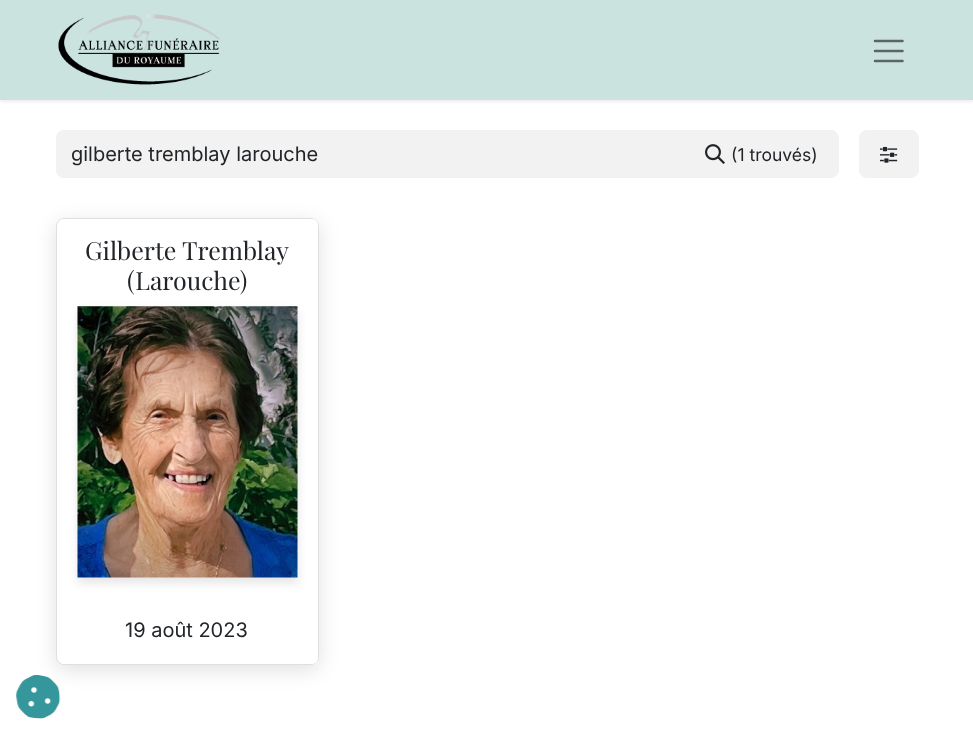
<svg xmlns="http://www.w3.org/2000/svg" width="973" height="734">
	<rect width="100%" height="100%" fill="#FFFFFF" />
	<rect x="0" y="1" width="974" height="100" fill="#000000" fill-opacity="0.1" filter="blur(2px)" />
	<rect x="0" y="0" width="973" height="100" fill="#CAE3DF" />
	<image x="58" y="14" width="162" height="71" href="assets/img1.png" />
	<path d="M875 41H902.5M875 51H902.5M875 61H902.5" fill="none" stroke="#5B6664" stroke-width="2.5" stroke-linecap="round" />
	<path d="M64 130H685V178H64C59.5 178 56 174.5 56 170V138C56 133.5 59.5 130 64 130Z" fill="#F3F2F2" />
	<text x="71" y="161" font-family="Inter" font-size="20" fill="#212529">gilberte tremblay larouche</text>
	<path d="M684.5 130.5H831C835 130.5 838.5 134 838.5 138V170C838.5 174 835 177.5 831 177.5H684.5Z" fill="#F3F2F2" stroke="#F3F2F2" />
	<image x="705" y="144" width="20" height="20" href="assets/img2.png" />
	<text x="731" y="161" font-family="Inter" font-size="17.5" fill="#212529">(1 trouvés)</text>
	<rect x="859.5" y="130.5" width="59" height="47" rx="7.5" fill="#F3F2F2" stroke="#F3F2F2" />
	<image x="880" y="146" width="18" height="17" href="assets/img3.png" />
	<rect x="56" y="223" width="263" height="447" rx="8" fill="#000000" fill-opacity="0.12" filter="blur(10px)" />
	<rect x="56" y="218" width="263" height="447" rx="8" fill="#FFFFFF" />
	<rect x="56.5" y="218.5" width="262" height="446" rx="7.5" fill="none" stroke="#212529" stroke-opacity="0.15" />
	<rect x="58" y="219" width="260" height="445" rx="6" fill="#FFFFFF" fill-opacity="0.9" />
	<g font-family="Playfair Display" font-size="25" fill="#212529">
		<text x="85" y="260">Gilberte Tremblay</text>
		<text x="127" y="290">(Larouche)</text>
	</g>
	<rect x="78" y="311" width="220" height="272" fill="#000000" fill-opacity="0.1" filter="blur(5px)" />
	<image x="77" y="306" width="221" height="272" href="assets/img4.png" />
	<text x="125" y="637" font-family="Inter" font-size="20" fill="#212529">19 août 2023</text>
	<image x="16" y="675" width="45" height="44" href="assets/img5.png" />
</svg>
